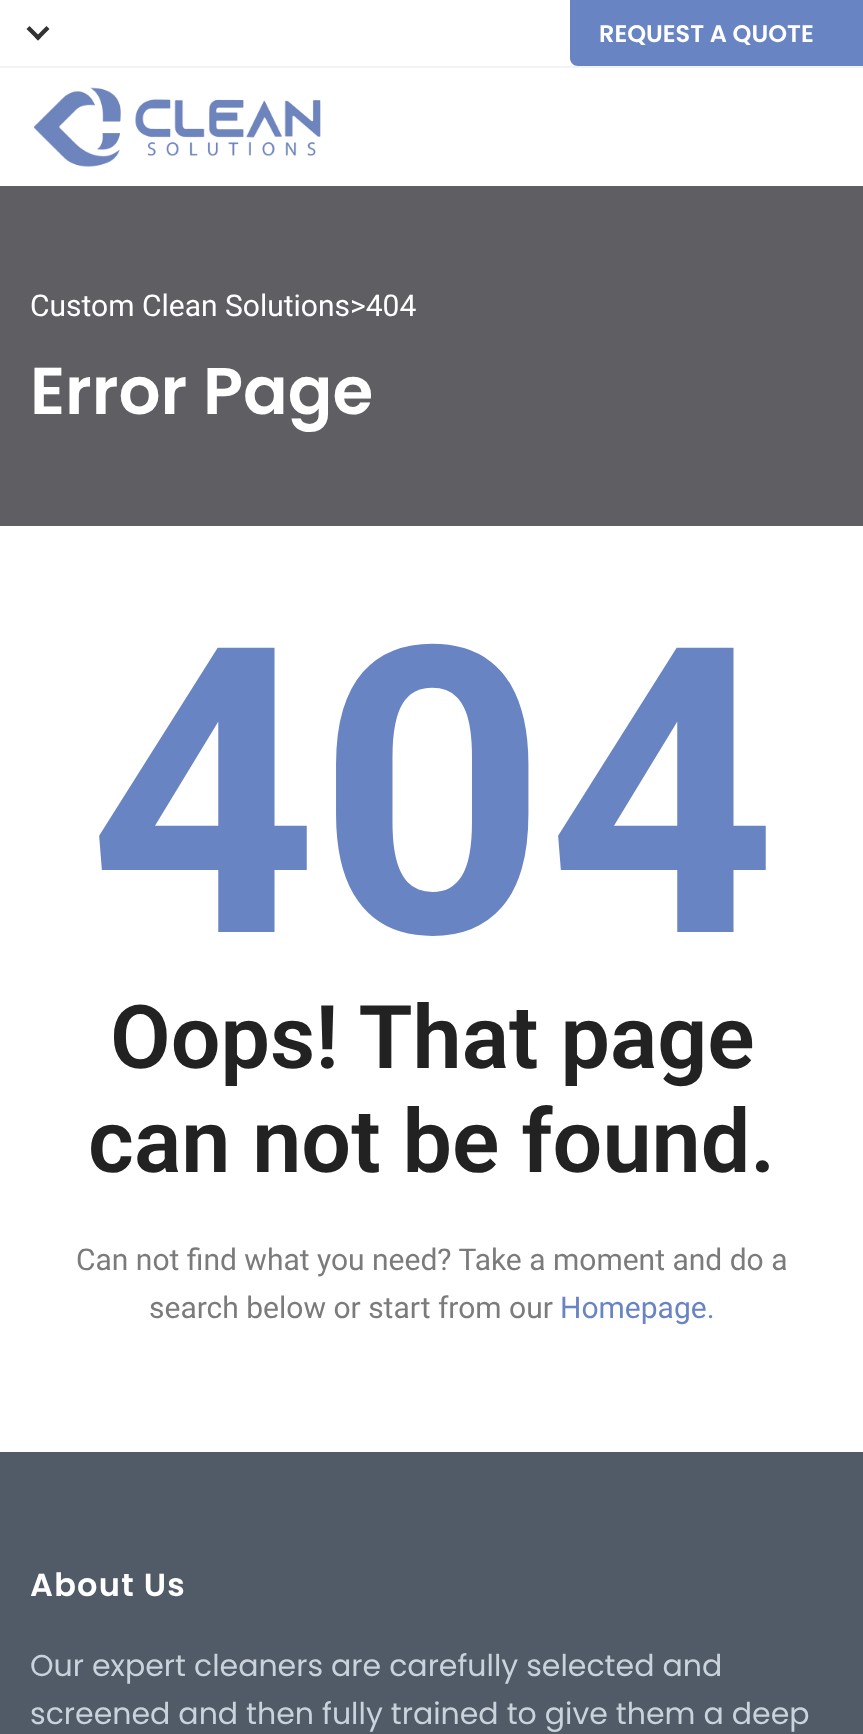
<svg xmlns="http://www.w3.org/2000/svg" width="863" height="1734">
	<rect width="100%" height="100%" fill="#FFFFFF" />
	<rect x="0" y="66" width="863" height="2" fill="#F1F3F5" />
	<path d="M46.5 26L49.5 29L38 40.5L35 37.5Z" fill="#323232" />
	<path d="M29.5 26L41 37.5L38 40.5L26.5 29Z" fill="#323232" />
	<path d="M570 0H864V66H578C573.5 66 570 62.5 570 58Z" fill="#6984C2" />
	<text x="599" y="42" font-family="Poppins" font-size="24" font-weight="600" fill="#FFFFFF">REQUEST A QUOTE</text>
	<image x="33" y="87" width="288" height="80" href="assets/img1.png" />
	<rect x="0" y="186" width="863" height="340" fill="#5F5E63" />
	<text x="30" y="316" font-family="Roboto" font-size="30" fill="#FFFFFF">Custom Clean Solutions&gt;404</text>
	<text x="30" y="414" font-family="Poppins" font-size="66" font-weight="600" fill="#FFFFFF">Error Page</text>
	<text x="88" y="932" font-family="Roboto" font-size="400" font-weight="700" fill="#6984C2">404</text>
	<g font-family="Roboto" font-size="88" font-weight="600" fill="#222222">
		<text x="110" y="1068">Oops! That page</text>
		<text x="88" y="1172">can not be found.</text>
	</g>
	<g font-family="Roboto" font-size="30" fill="#7B7B7B">
		<text x="76" y="1270">Can not find what you need? Take a moment and do a</text>
		<text x="149" y="1318">search below or start from our</text>
	</g>
	<text x="560" y="1318" font-family="Roboto" font-size="30" fill="#6984C2">Homepage.</text>
	<rect x="0" y="1452" width="863" height="282" fill="#515B68" />
	<text x="30" y="1596" font-family="Poppins" font-size="32" font-weight="600" letter-spacing="1.25" fill="#FFFFFF">About Us</text>
	<g font-family="Poppins" font-size="30" fill="#CAD3DB">
		<text x="30" y="1676">Our expert cleaners are carefully selected and</text>
		<text x="30" y="1724">screened and then fully trained to give them a deep</text>
	</g>
</svg>
